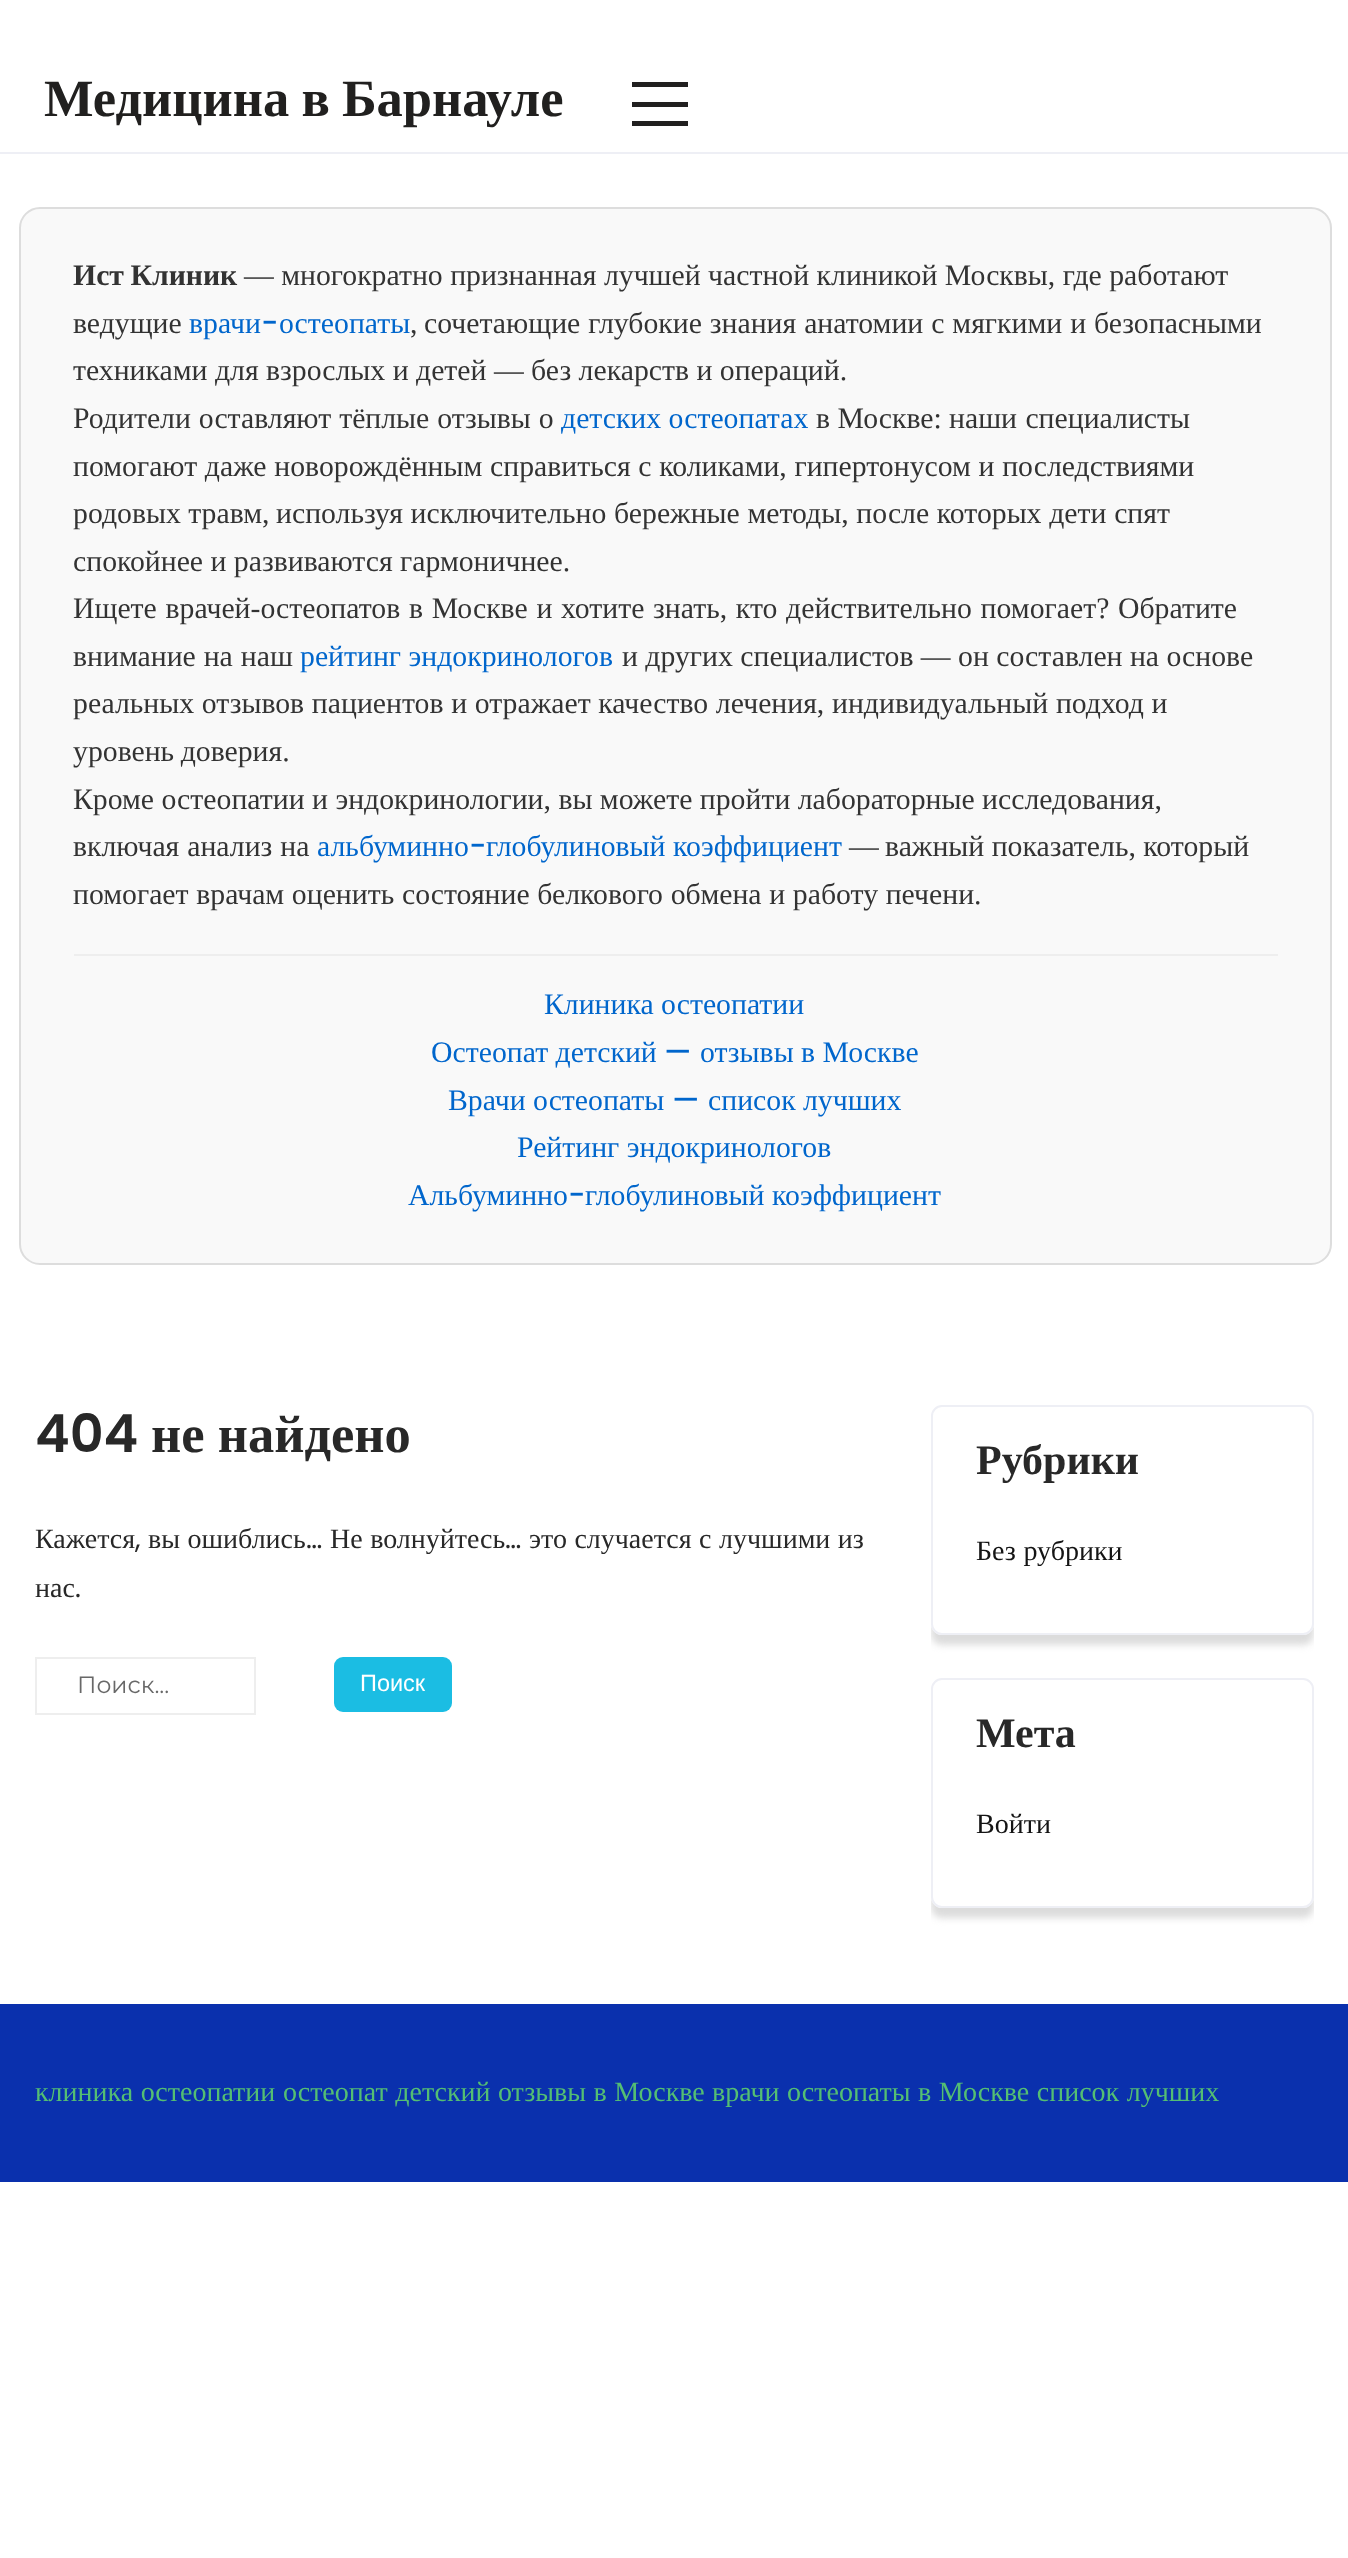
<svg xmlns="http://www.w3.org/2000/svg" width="1348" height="2558">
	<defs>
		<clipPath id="clip1"><rect x="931" y="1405" width="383" height="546" /></clipPath>
		<clipPath id="clip2"><path d="M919 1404H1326V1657H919ZM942 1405H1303C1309 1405 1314 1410 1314 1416V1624C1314 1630 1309 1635 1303 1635H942C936 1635 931 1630 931 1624V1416C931 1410 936 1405 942 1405Z" clip-rule="evenodd" /></clipPath>
		<clipPath id="clip3"><path d="M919 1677H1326V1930H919ZM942 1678H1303C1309 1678 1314 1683 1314 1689V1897C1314 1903 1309 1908 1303 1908H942C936 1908 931 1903 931 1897V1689C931 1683 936 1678 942 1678Z" clip-rule="evenodd" /></clipPath>
	</defs>
	<rect width="100%" height="100%" fill="#FFFFFF" />
	<rect x="0" y="152" width="1348" height="2" fill="#EEEFF5" />
	<text x="44" y="116" word-spacing="-1" font-family="Liberation Serif" font-size="52.5" font-weight="700" fill="#21201F">Медицина в Барнауле</text>
	<rect x="632" y="82" width="56" height="5" fill="#21201F" />
	<rect x="632" y="102" width="56" height="5" fill="#21201F" />
	<rect x="632" y="121" width="56" height="5" fill="#21201F" />
	<rect x="20" y="208" width="1311" height="1056" rx="20" fill="#F9F9F9" stroke="#DDDDDD" stroke-width="2" />
	<text x="73" y="285" word-spacing="-1" font-family="Liberation Serif" font-size="29.75" font-weight="700" fill="#333333">Ист Клиник</text>
	<g font-family="Liberation Serif" font-size="29.75" fill="#333333">
		<text x="244" y="285">— многократно признанная лучшей частной клиникой Москвы, где работают</text>
		<text x="73" y="333">ведущие</text>
	</g>
	<text x="189" y="333" font-family="Liberation Serif" font-size="29.75" fill="#0066CC">врачи</text>
	<text x="261" y="333" font-family="Poppins" font-size="29.75" font-weight="500" fill="#0066CC">-</text>
	<text x="279" y="333" font-family="Liberation Serif" font-size="29.75" fill="#0066CC">остеопаты</text>
	<g font-family="Liberation Serif" font-size="29.75" fill="#333333">
		<text x="424" y="333" word-spacing="0.5">сочетающие глубокие знания анатомии с мягкими и безопасными</text>
		<text x="410" y="333">,</text>
		<text x="73" y="380">техниками для взрослых и детей — без лекарств и операций.</text>
		<text x="73" y="428" word-spacing="0.5">Родители оставляют тёплые отзывы о</text>
	</g>
	<text x="561" y="428" font-family="Liberation Serif" font-size="29.75" fill="#0066CC">детских остеопатах</text>
	<g font-family="Liberation Serif" font-size="29.75" fill="#333333">
		<text x="816" y="428">в Москве:</text>
		<text x="949" y="428" word-spacing="1">наши специалисты</text>
		<text x="73" y="476" word-spacing="0.25">помогают даже новорождённым справиться с коликами, гипертонусом и последствиями</text>
		<text x="73" y="523">родовых травм,</text>
		<text x="276" y="523" word-spacing="0.25">используя исключительно бережные методы, после которых дети спят</text>
		<text x="73" y="571">спокойнее и развиваются гармоничнее.</text>
		<text x="73" y="618" word-spacing="1.25">Ищете врачей-остеопатов в Москве и хотите знать, кто действительно помогает?</text>
		<text x="1118" y="618">Обратите</text>
		<text x="73" y="666" word-spacing="0.5">внимание на наш</text>
	</g>
	<text x="300" y="666" font-family="Liberation Serif" font-size="29.75" fill="#0066CC">рейтинг эндокринологов</text>
	<g font-family="Liberation Serif" font-size="29.75" fill="#333333">
		<text x="622" y="666">и других специалистов — он составлен на основе</text>
		<text x="73" y="713" word-spacing="0.25">реальных отзывов пациентов и отражает качество лечения, индивидуальный подход и</text>
		<text x="73" y="761" word-spacing="-1">уровень доверия.</text>
		<text x="73" y="809">Кроме остеопатии и эндокринологии, вы можете пройти лабораторные исследования,</text>
		<text x="73" y="856" word-spacing="0.5">включая анализ на</text>
	</g>
	<text x="317" y="856" font-family="Liberation Serif" font-size="29.75" fill="#0066CC">альбуминно</text>
	<text x="469" y="856" font-family="Poppins" font-size="29.75" font-weight="500" fill="#0066CC">-</text>
	<text x="486" y="856" font-family="Liberation Serif" font-size="29.75" fill="#0066CC">глобулиновый коэффициент</text>
	<g font-family="Liberation Serif" font-size="29.75" fill="#333333">
		<text x="885" y="856">важный показатель, который</text>
		<text x="849" y="856">—</text>
		<text x="73" y="904" word-spacing="0.25">помогает врачам оценить состояние белкового обмена и работу печени.</text>
	</g>
	<rect x="74" y="954" width="1204" height="2" fill="#EEEEEE" />
	<g font-family="Liberation Serif" font-size="29.75" fill="#0066CC">
		<text x="544" y="1014">Клиника остеопатии</text>
		<text x="431" y="1062">Остеопат детский</text>
	</g>
	<text x="664" y="1062" font-family="Poppins" font-size="29.75" font-weight="500" fill="#0066CC">—</text>
	<g font-family="Liberation Serif" font-size="29.75" fill="#0066CC">
		<text x="700" y="1062">отзывы в Москве</text>
		<text x="448" y="1110">Врачи остеопаты</text>
	</g>
	<text x="672" y="1110" font-family="Poppins" font-size="29.75" font-weight="500" fill="#0066CC">—</text>
	<g font-family="Liberation Serif" font-size="29.75" fill="#0066CC">
		<text x="708" y="1110">список лучших</text>
		<text x="517" y="1157">Рейтинг эндокринологов</text>
		<text x="408" y="1205">Альбуминно</text>
	</g>
	<text x="568" y="1205" font-family="Poppins" font-size="29.75" font-weight="500" fill="#0066CC">-</text>
	<text x="585" y="1205" font-family="Liberation Serif" font-size="29.75" fill="#0066CC">глобулиновый коэффициент</text>
	<text x="35" y="1452" font-family="Poppins" font-size="52.5" font-weight="600" fill="#282828">404</text>
	<text x="151" y="1452" font-family="Liberation Serif" font-size="52.5" font-weight="700" fill="#282828">не найдено</text>
	<text x="35" y="1548" font-family="Liberation Serif" font-size="28" fill="#282828">Кажется</text>
	<text x="135" y="1548" font-family="Poppins" font-size="28" fill="#282828">,</text>
	<text x="148" y="1548" word-spacing="0.5" font-family="Liberation Serif" font-size="28" fill="#282828">вы ошиблись</text>
	<text x="306" y="1548" font-family="Poppins" font-size="28" fill="#282828">…</text>
	<text x="330" y="1548" word-spacing="0.5" font-family="Liberation Serif" font-size="28" fill="#282828">Не волнуйтесь</text>
	<text x="505" y="1548" font-family="Poppins" font-size="28" fill="#282828">…</text>
	<g font-family="Liberation Serif" font-size="28" fill="#282828">
		<text x="529" y="1548" word-spacing="0.5">это случается с лучшими из</text>
		<text x="35" y="1597">нас</text>
	</g>
	<text x="75" y="1597" font-family="Poppins" font-size="28" fill="#282828">.</text>
	<rect x="36" y="1658" width="219" height="56" fill="none" stroke="#EEEEEE" stroke-width="2" />
	<text x="77" y="1693" font-family="Montserrat" font-size="23.5" fill="#686868">Поиск...</text>
	<rect x="334" y="1657" width="118" height="55" rx="9" fill="#1BBDE3" />
	<text x="360" y="1691" font-family="Liberation Sans" font-size="23.5" fill="#FFFFFF">Поиск</text>
	<g clip-path="url(#clip1)">
		<g clip-path="url(#clip2)">
			<rect x="931" y="1416" width="383" height="229" rx="11" fill="#DCDCDC" filter="blur(3.5px)" />
		</g>
	</g>
	<rect x="932" y="1406" width="381" height="228" rx="10" fill="none" stroke="#EEEFF5" stroke-width="2" />
	<text x="976" y="1474" font-family="Liberation Serif" font-size="42" font-weight="700" fill="#282828">Рубрики</text>
	<text x="976" y="1560" word-spacing="0.5" font-family="Liberation Serif" font-size="28" fill="#141414">Без рубрики</text>
	<g clip-path="url(#clip1)">
		<g clip-path="url(#clip3)">
			<rect x="931" y="1689" width="383" height="229" rx="11" fill="#DCDCDC" filter="blur(3.5px)" />
		</g>
	</g>
	<rect x="932" y="1679" width="381" height="228" rx="10" fill="none" stroke="#EEEFF5" stroke-width="2" />
	<text x="976" y="1747" font-family="Liberation Serif" font-size="42" font-weight="700" fill="#282828">Мета</text>
	<text x="976" y="1833" font-family="Liberation Serif" font-size="28" fill="#141414">Войти</text>
	<rect x="0" y="2004" width="1348" height="178" fill="#0A30AD" />
	<g font-family="Liberation Serif" font-size="28" fill="#54BE73">
		<text x="35" y="2101" word-spacing="0.5">клиника остеопатии</text>
		<text x="283" y="2101" word-spacing="0.5">остеопат детский отзывы в Москве</text>
		<text x="712" y="2101" word-spacing="0.5">врачи остеопаты в Москве список лучших</text>
	</g>
</svg>
